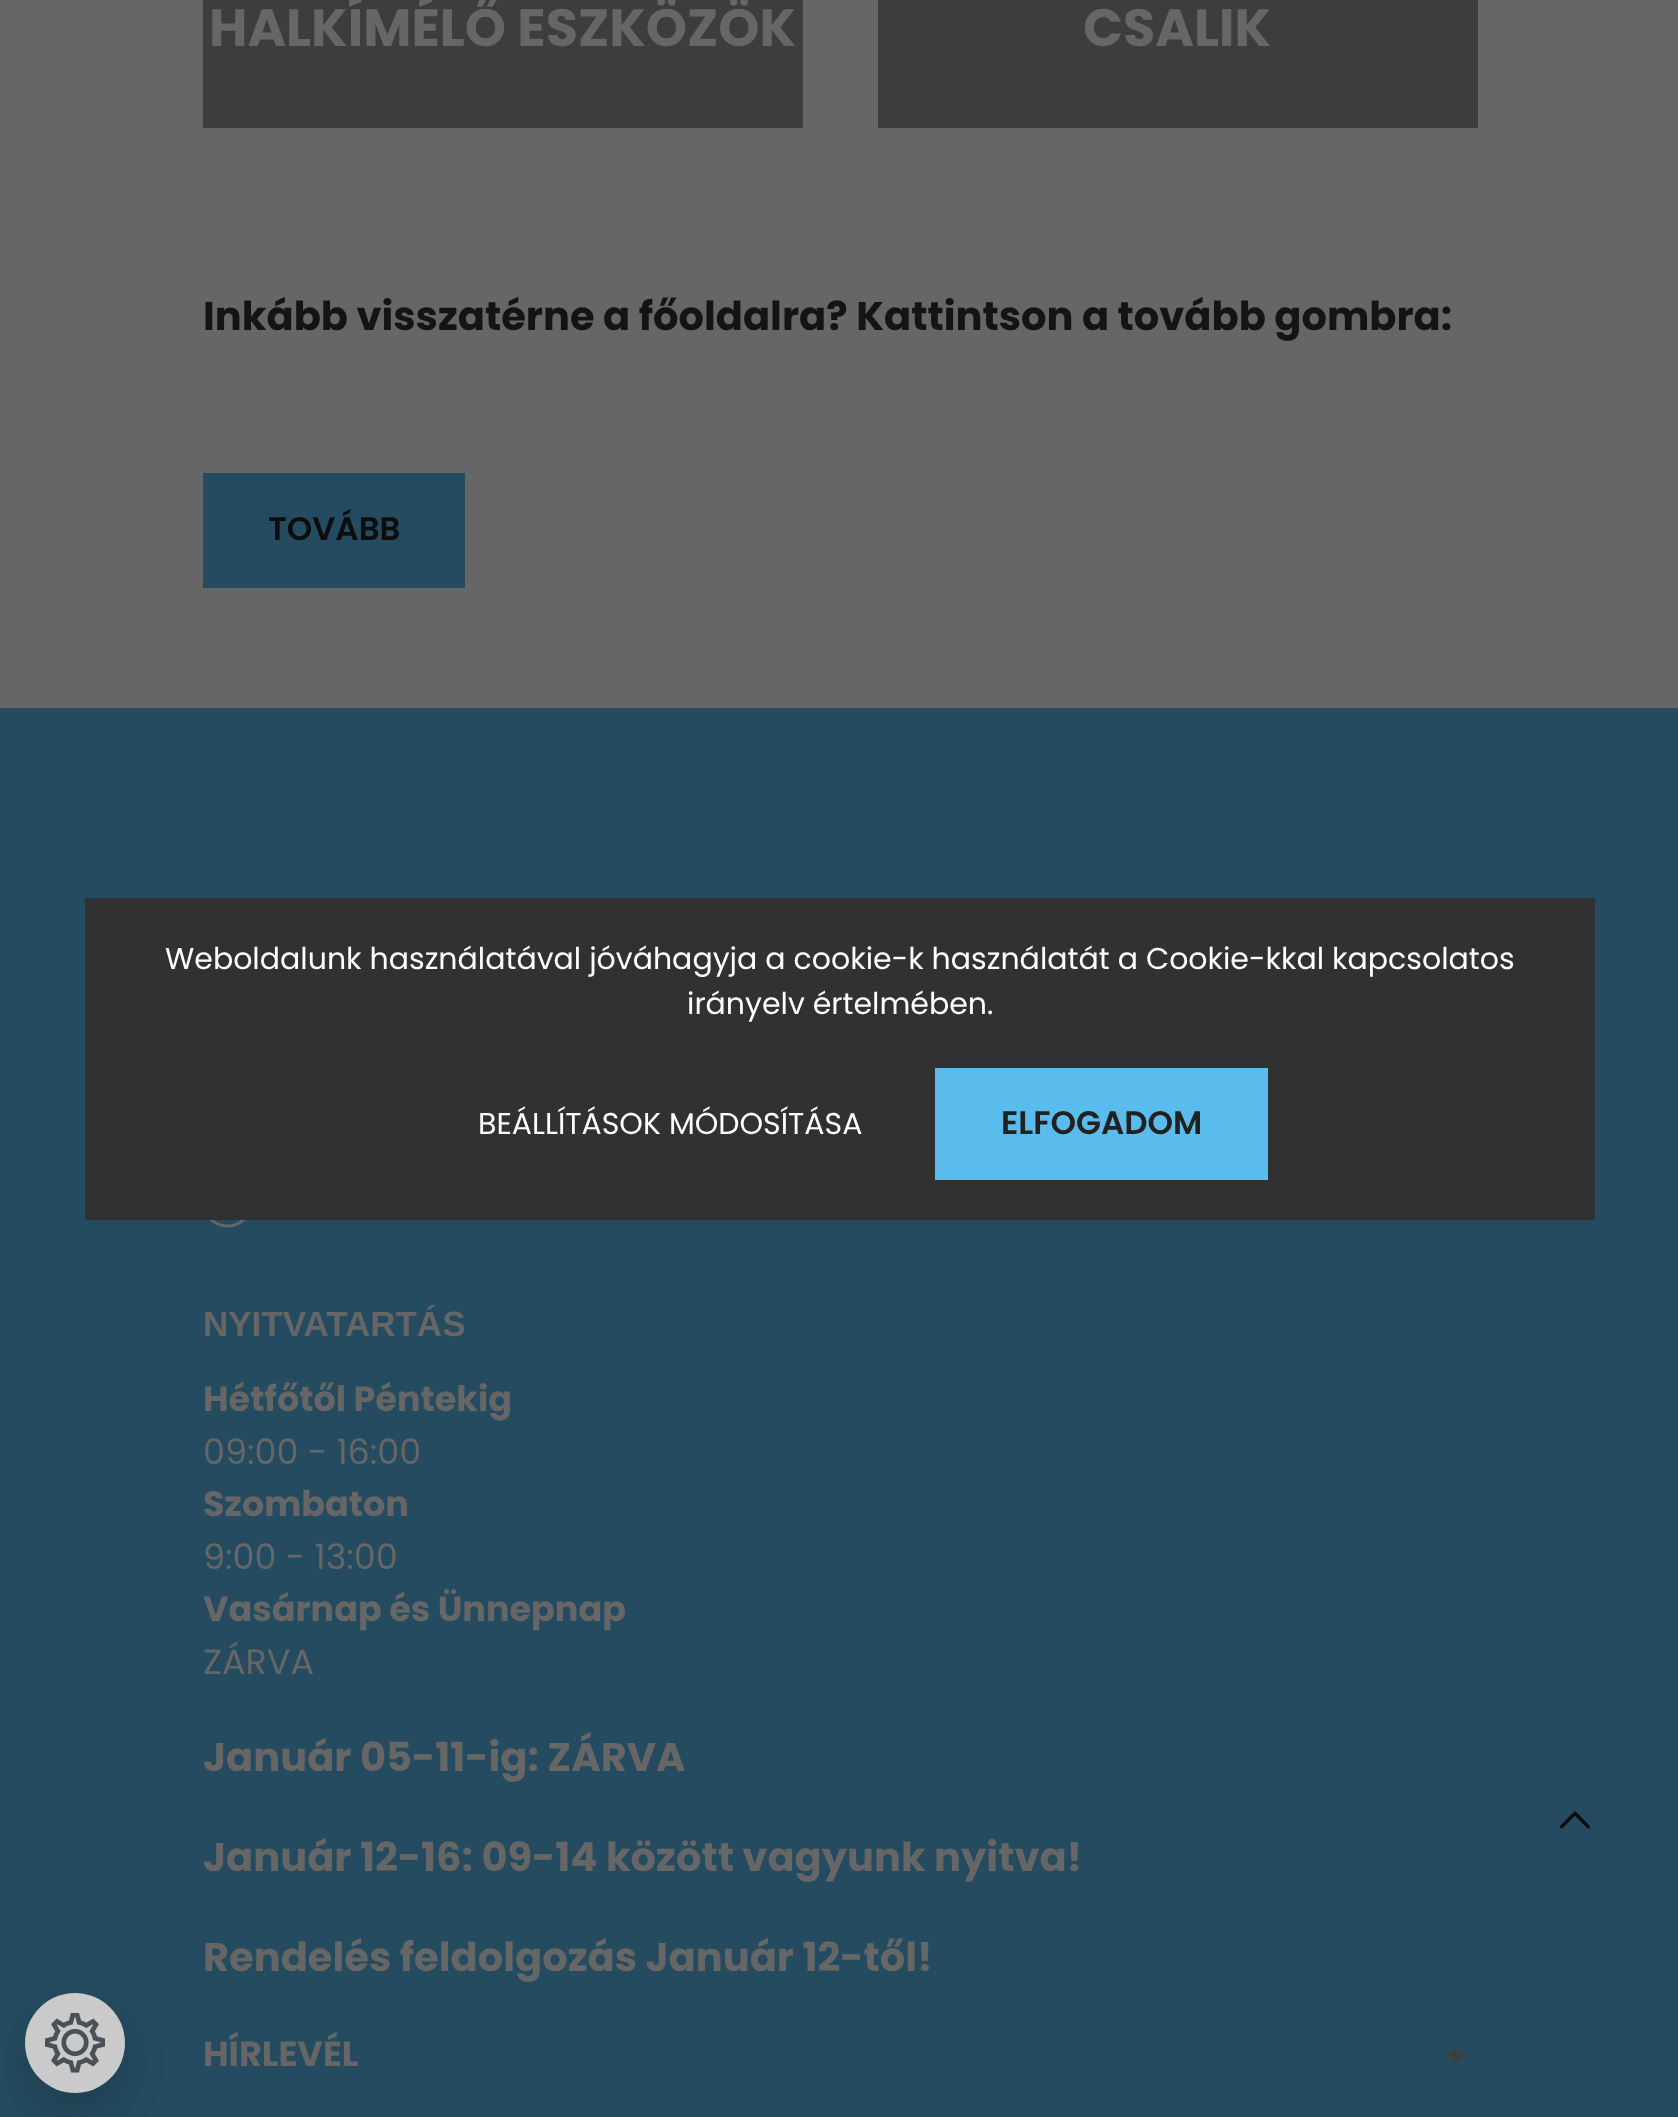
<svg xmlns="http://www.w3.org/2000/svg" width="1678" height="2117">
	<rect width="100%" height="100%" fill="#666666" />
	<rect x="203" y="0" width="600" height="128" fill="#3D3D3D" />
	<text x="209" y="46" font-family="Poppins" font-size="52.5" font-weight="700" fill="#666666">HALKÍMÉLŐ ESZKÖZÖK</text>
	<rect x="878" y="0" width="600" height="128" fill="#3D3D3D" />
	<text x="1083" y="46" font-family="Poppins" font-size="52.5" font-weight="700" fill="#666666">CSALIK</text>
	<text x="203" y="330" font-family="Poppins" font-size="40" font-weight="700" fill="#141414">Inkább visszatérne a főoldalra? Kattintson a tovább gombra:</text>
	<rect x="203" y="473" width="262" height="115" fill="#244B5F" />
	<text x="268" y="540" font-family="Poppins" font-size="32.5" font-weight="600" fill="#0D0D0D">TOVÁBB</text>
	<rect x="0" y="708" width="1678" height="1409" fill="#244B5F" />
	<image x="209" y="1220" width="36" height="8" href="assets/img1.png" />
	<text x="203" y="1336" font-family="Liberation Sans" font-size="35" font-weight="700" fill="#666666">NYITVATARTÁS</text>
	<text x="203" y="1411" font-family="Poppins" font-size="35" font-weight="700" fill="#666666">Hétfőtől Péntekig</text>
	<text x="203" y="1464" font-family="Poppins" font-size="35" fill="#666666">09:00 - 16:00</text>
	<text x="203" y="1516" font-family="Poppins" font-size="35" font-weight="700" fill="#666666">Szombaton</text>
	<text x="203" y="1569" font-family="Poppins" font-size="35" fill="#666666">9:00 - 13:00</text>
	<text x="203" y="1621" font-family="Poppins" font-size="35" font-weight="700" fill="#666666">Vasárnap és Ünnepnap</text>
	<text x="203" y="1674" font-family="Poppins" font-size="35" fill="#666666">ZÁRVA</text>
	<g font-family="Poppins" font-size="40" font-weight="700" fill="#666666">
		<text x="203" y="1771">Január 05-11-ig: ZÁRVA</text>
		<text x="203" y="1871">Január 12-16: 09-14 között vagyunk nyitva!</text>
		<text x="203" y="1971">Rendelés feldolgozás Január 12-től!</text>
	</g>
	<text x="203" y="2066" font-family="Poppins" font-size="35" font-weight="700" fill="#666666">HÍRLEVÉL</text>
	<rect x="1453" y="2045" width="5" height="20" fill="#3E3E3E" />
	<rect x="1445" y="2053" width="20" height="5" fill="#3E3E3E" />
	<image x="1560" y="1811" width="30" height="18" href="assets/img2.png" />
	<rect x="85" y="898" width="1510" height="322" fill="#313131" />
	<g font-family="Poppins" font-size="30" fill="#FFFFFF">
		<text x="165" y="969">Weboldalunk használatával jóváhagyja a cookie-k használatát a Cookie-kkal kapcsolatos</text>
		<text x="687" y="1014">irányelv értelmében.</text>
		<text x="478" y="1134">BEÁLLÍTÁSOK MÓDOSÍTÁSA</text>
	</g>
	<rect x="935" y="1068" width="333" height="112" fill="#5ABCED" />
	<text x="1001" y="1134" font-family="Poppins" font-size="32.5" font-weight="600" fill="#212121">ELFOGADOM</text>
	<rect x="25" y="2013" width="100" height="100" rx="50" fill="#000000" fill-opacity="0.15" filter="blur(20px)" />
	<circle cx="75" cy="2043" r="50" fill="#CACACA" />
	<image x="45" y="2013" width="60" height="60" href="assets/img3.png" />
</svg>
